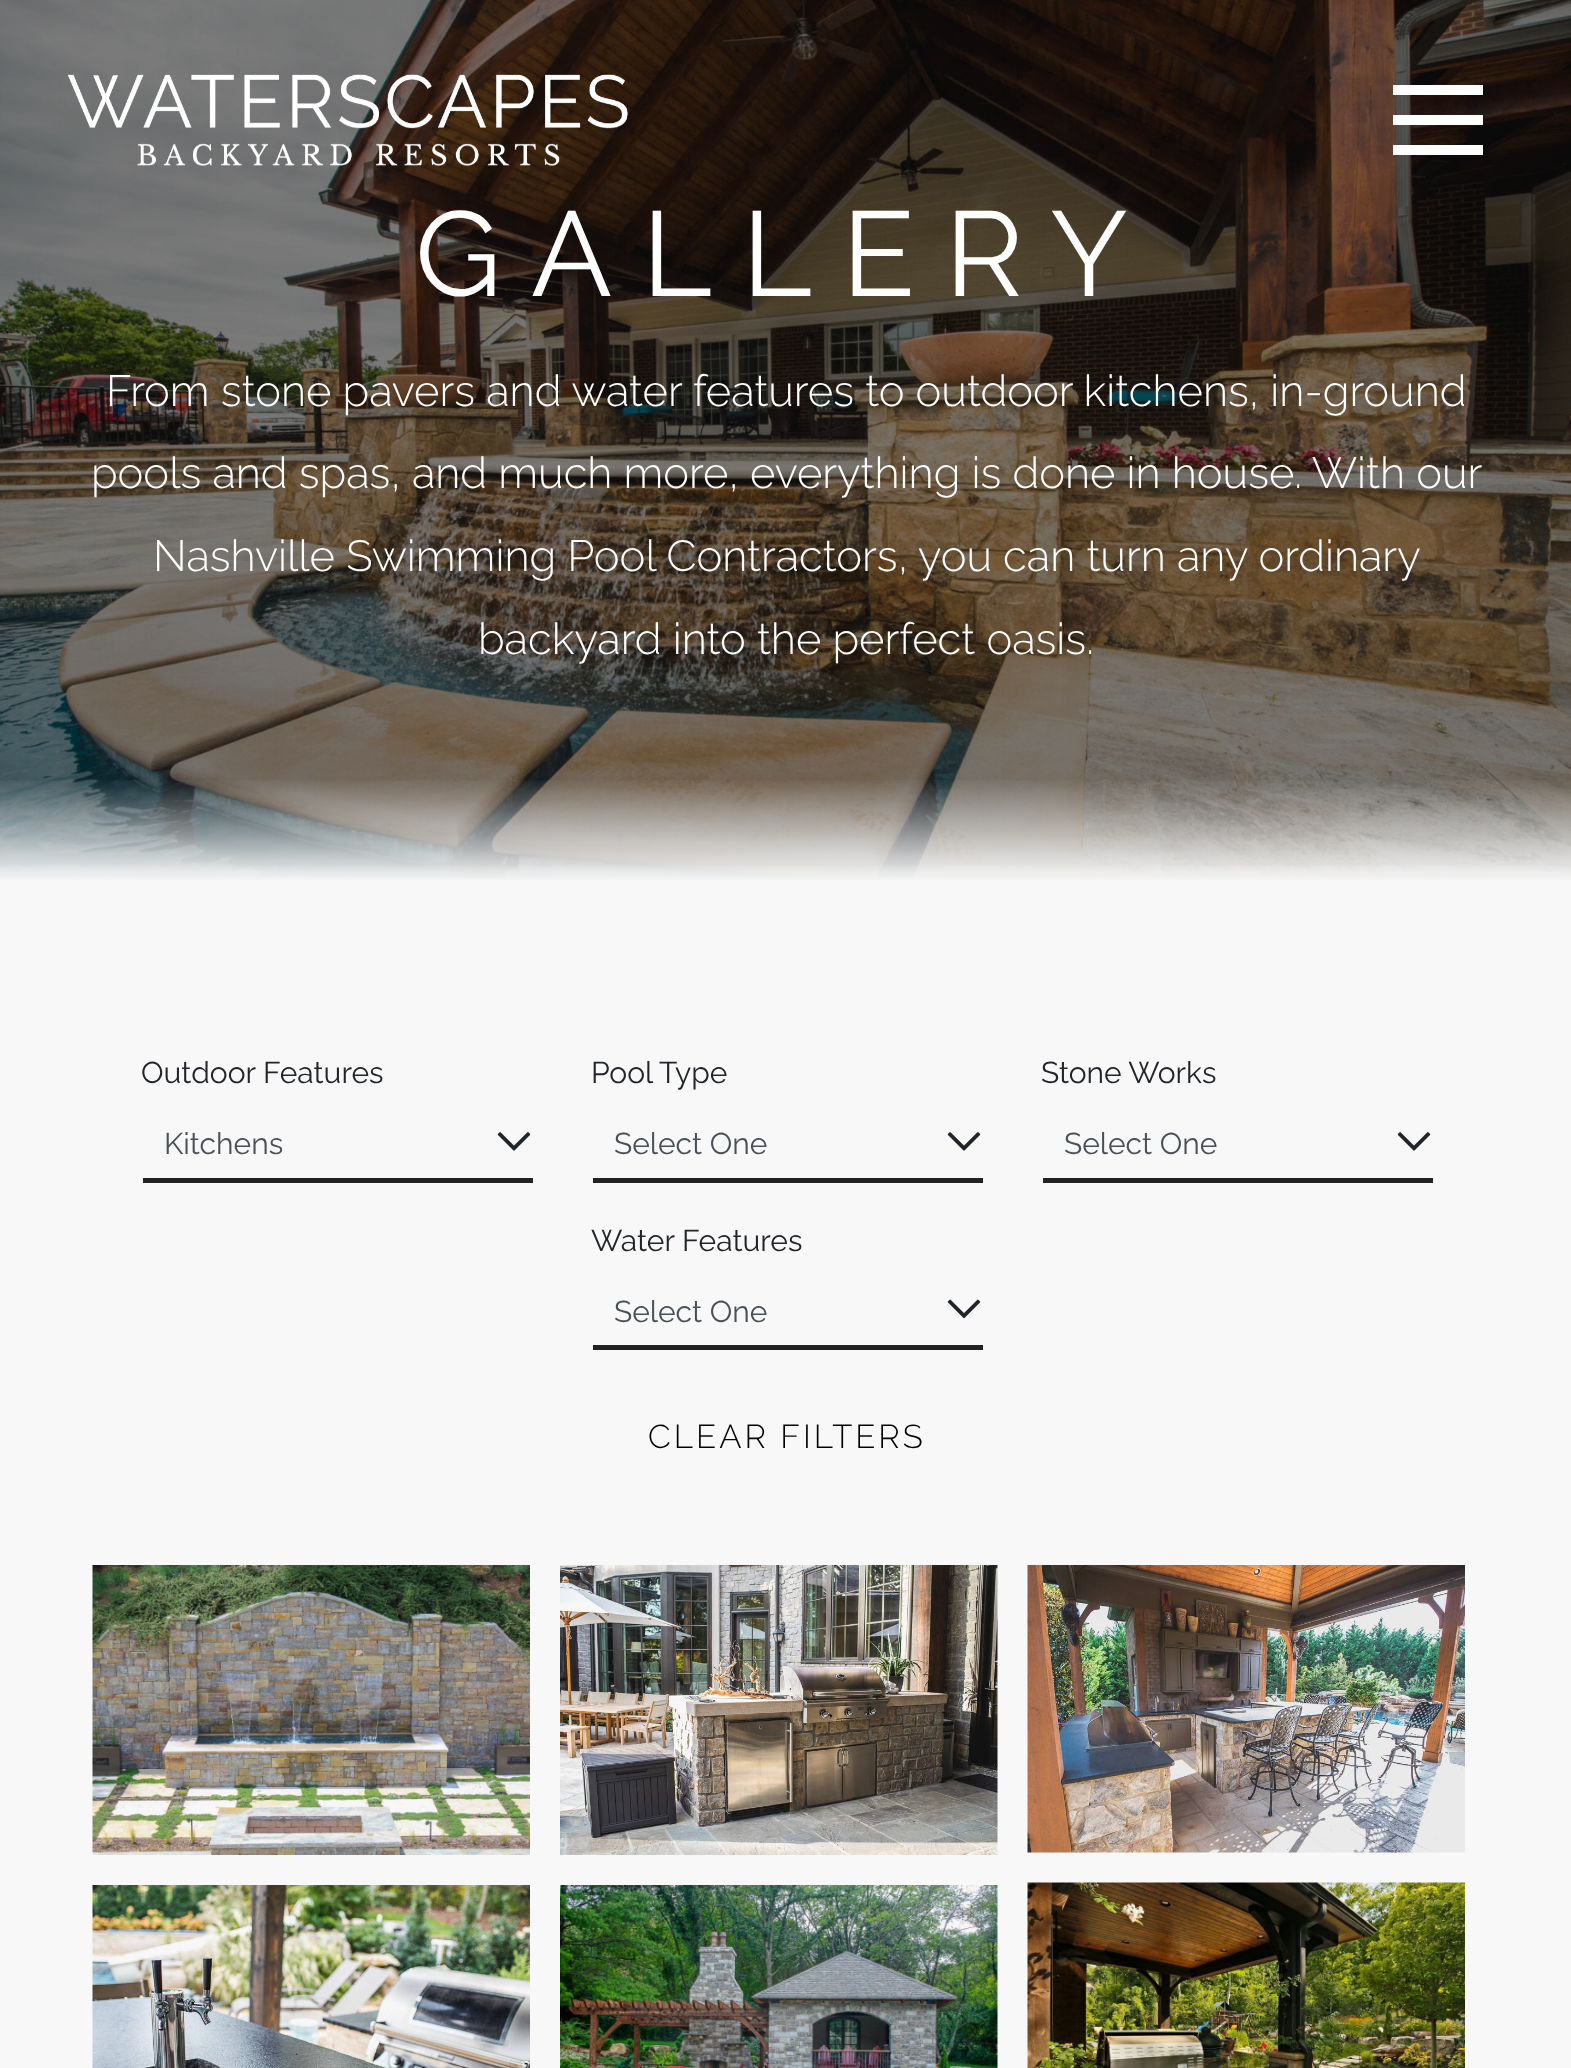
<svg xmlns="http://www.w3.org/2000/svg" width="1571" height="2068">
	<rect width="100%" height="100%" fill="#F8F8F8" />
	<image x="0" y="0" width="1571" height="880" href="assets/img2.png" />
	<image x="67" y="74" width="561" height="92" href="assets/img1.png" />
	<rect x="1393" y="85" width="90" height="10" fill="#FFFFFF" />
	<rect x="1393" y="115" width="90" height="10" fill="#FFFFFF" />
	<rect x="1393" y="145" width="90" height="10" fill="#FFFFFF" />
	<text x="415" y="296" font-family="Raleway" font-size="120" letter-spacing="30" fill="#FFFFFF">GALLERY</text>
	<g font-family="Raleway" font-size="43.5" font-weight="300" fill="#FFFFFF">
		<text x="106" y="406">From stone pavers and water features to outdoor kitchens, in-ground</text>
		<text x="91" y="488">pools and spas, and much more, everything is done in house. With our</text>
		<text x="153" y="571">Nashville Swimming Pool Contractors, you can turn any ordinary</text>
		<text x="478" y="654">backyard into the perfect oasis.</text>
	</g>
	<image x="0" y="780" width="1571" height="120" href="assets/img3.png" />
	<text x="141" y="1083" font-family="Raleway" font-size="30" fill="#212529">Outdoor Features</text>
	<rect x="143" y="1178" width="390" height="5" fill="#222222" />
	<text x="164" y="1154" font-family="Raleway" font-size="30" fill="#495057">Kitchens</text>
	<image x="497" y="1132" width="34" height="19" href="assets/img4.png" />
	<text x="591" y="1083" font-family="Raleway" font-size="30" fill="#212529">Pool Type</text>
	<rect x="593" y="1178" width="390" height="5" fill="#222222" />
	<text x="614" y="1154" font-family="Raleway" font-size="30" fill="#495057">Select One</text>
	<image x="947" y="1132" width="34" height="19" href="assets/img4.png" />
	<text x="1041" y="1083" font-family="Raleway" font-size="30" fill="#212529">Stone Works</text>
	<rect x="1043" y="1178" width="390" height="5" fill="#222222" />
	<text x="1064" y="1154" font-family="Raleway" font-size="30" fill="#495057">Select One</text>
	<image x="1397" y="1132" width="34" height="19" href="assets/img4.png" />
	<text x="591" y="1251" font-family="Raleway" font-size="30" fill="#212529">Water Features</text>
	<rect x="593" y="1345" width="390" height="5" fill="#222222" />
	<text x="614" y="1322" font-family="Raleway" font-size="30" fill="#495057">Select One</text>
	<image x="947" y="1299" width="34" height="20" href="assets/img5.png" />
	<text x="648" y="1448" font-family="Raleway" font-size="33" font-weight="300" letter-spacing="3" fill="#000000">CLEAR FILTERS</text>
	<image x="92" y="1565" width="438" height="290" href="assets/img6.png" />
	<image x="92" y="1885" width="438" height="183" href="assets/img7.png" />
	<image x="560" y="1565" width="438" height="290" href="assets/img8.png" />
	<image x="560" y="1885" width="438" height="183" href="assets/img9.png" />
	<image x="1027" y="1565" width="438" height="288" href="assets/img10.png" />
	<image x="1027" y="1882" width="438" height="186" href="assets/img11.png" />
</svg>
